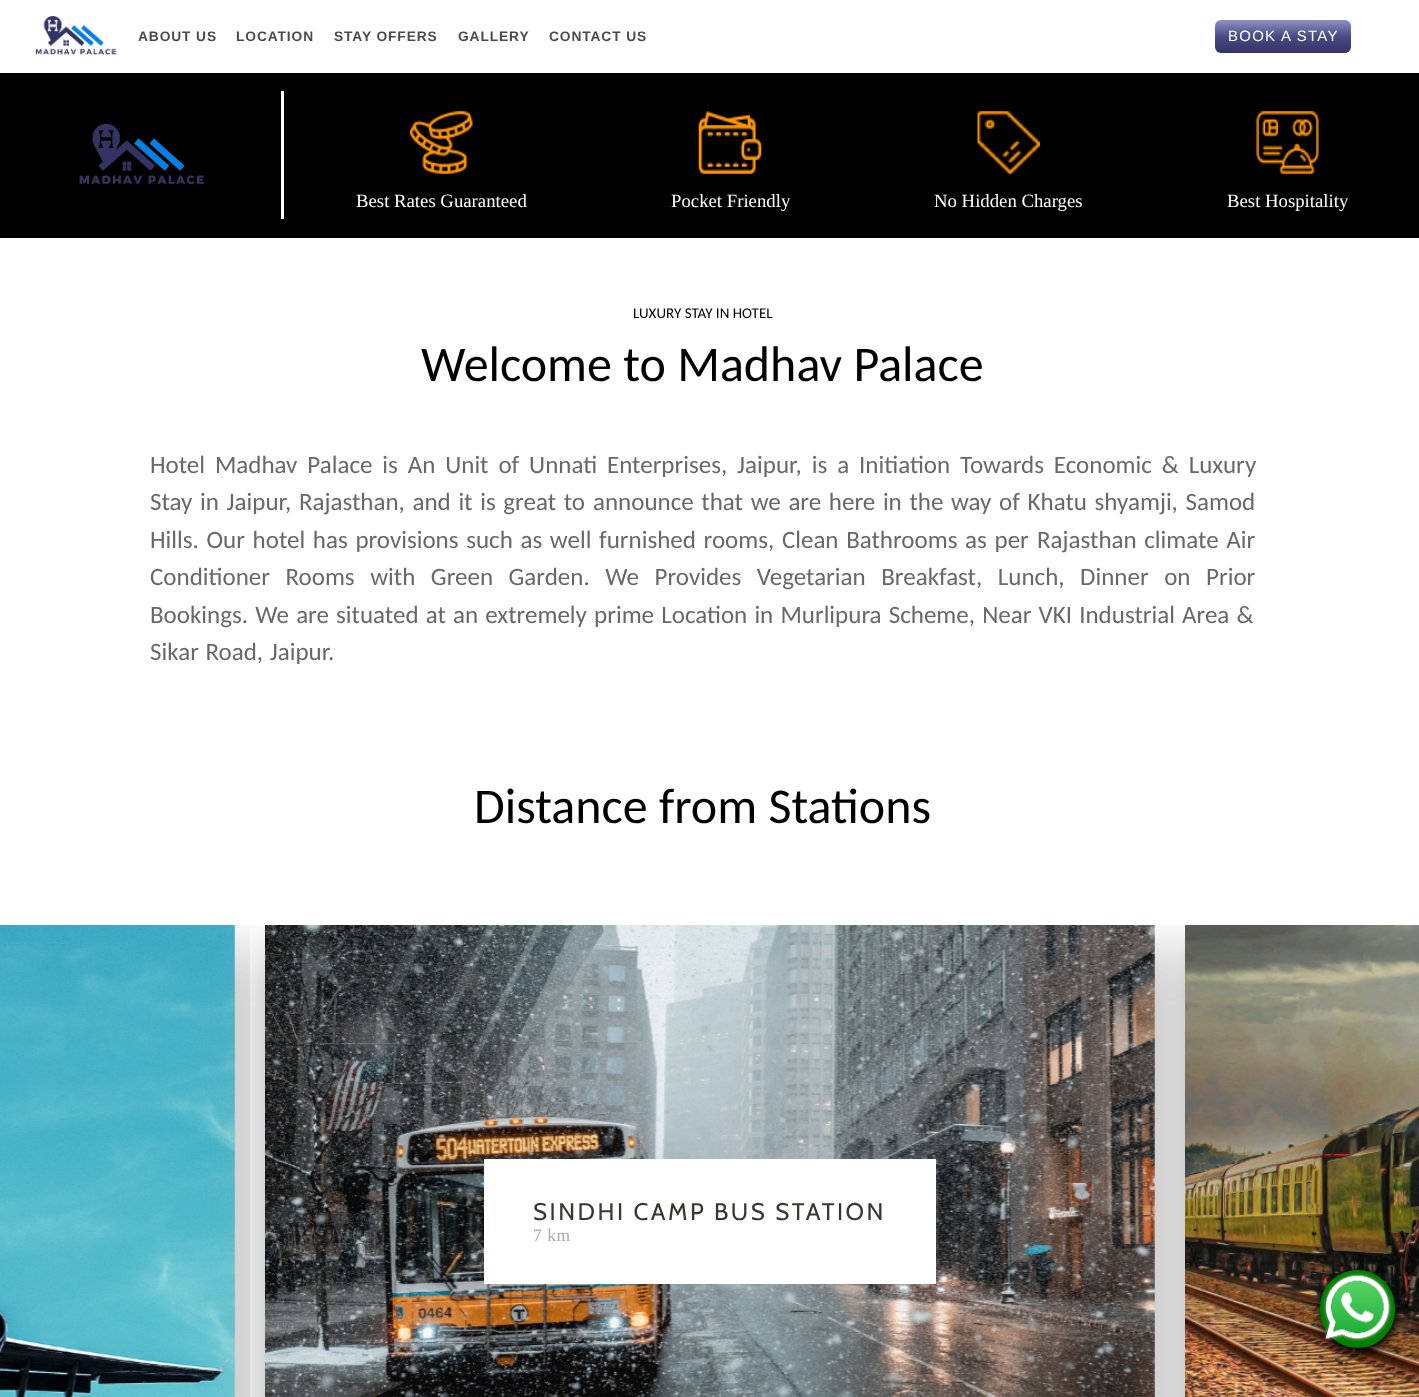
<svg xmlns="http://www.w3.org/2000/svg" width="1419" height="1397">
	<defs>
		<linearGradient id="g1" gradientUnits="userSpaceOnUse" x1="1283" y1="20" x2="1283" y2="53"><stop offset="0" stop-color="#9191C6" /><stop offset="0.49" stop-color="#4B4B85" /><stop offset="1" stop-color="#333366" /></linearGradient>
		<clipPath id="clip1"><rect x="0" y="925" width="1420" height="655" /></clipPath>
	</defs>
	<rect width="100%" height="100%" fill="#FFFFFF" />
	<image x="35" y="16" width="82" height="39" href="assets/img1.png" />
	<g font-family="Liberation Sans" font-size="13.75" font-weight="700" letter-spacing="0.9" fill="#4A4A4A">
		<text x="138" y="41">ABOUT US</text>
		<text x="236" y="41">LOCATION</text>
		<text x="334" y="41">STAY OFFERS</text>
		<text x="458" y="41">GALLERY</text>
		<text x="549" y="41">CONTACT US</text>
	</g>
	<rect x="1215" y="20" width="136" height="33" rx="6" fill="url(#g1)" />
	<text x="1228" y="41" font-family="Liberation Sans" font-size="15" letter-spacing="1.25" fill="#FFFFFF">BOOK A STAY</text>
	<rect x="0" y="73" width="1419" height="165" fill="#000000" />
	<rect x="281" y="91" width="3" height="128" fill="#FFFFFF" />
	<image x="79" y="124" width="125" height="61" href="assets/img2.png" />
	<image x="410" y="111" width="63" height="63" href="assets/img3.png" />
	<text x="356" y="207" font-family="Liberation Serif" font-size="18.75" fill="#FFFFFF">Best Rates Guaranteed</text>
	<image x="698" y="111" width="64" height="63" href="assets/img4.png" />
	<text x="671" y="207" font-family="Liberation Serif" font-size="18.75" fill="#FFFFFF">Pocket Friendly</text>
	<image x="977" y="111" width="63" height="63" href="assets/img5.png" />
	<text x="934" y="207" font-family="Liberation Serif" font-size="18.75" fill="#FFFFFF">No Hidden Charges</text>
	<image x="1256" y="111" width="63" height="63" href="assets/img6.png" />
	<text x="1227" y="207" font-family="Liberation Serif" font-size="18.75" fill="#FFFFFF">Best Hospitality</text>
	<text x="633" y="318" font-family="Carlito" font-size="15" fill="#000000">LUXURY STAY IN HOTEL</text>
	<text x="421" y="381" font-family="Carlito" font-size="50" fill="#000000">Welcome to Madhav Palace</text>
	<g font-family="Carlito" font-size="25" fill="#686868">
		<text x="150" y="473" word-spacing="4.25">Hotel Madhav Palace is An Unit of Unnati Enterprises, Jaipur, is a Initiation Towards Economic &amp; Luxury</text>
		<text x="150" y="510" word-spacing="2">Stay in Jaipur, Rajasthan, and it is great to</text>
		<text x="593" y="510" word-spacing="2">announce that we are here in the way of Khatu shyamji, Samod</text>
		<text x="150" y="548" word-spacing="2">Hills. Our hotel has provisions such as well furnished rooms, Clean Bathrooms as per</text>
		<text x="1037" y="548" word-spacing="2">Rajasthan climate Air</text>
		<text x="150" y="585" word-spacing="9.9">Conditioner Rooms with Green Garden. We Provides Vegetarian Breakfast, Lunch, Dinner on Prior</text>
		<text x="150" y="623" word-spacing="1.5">Bookings. We are situated at</text>
		<text x="453" y="623" word-spacing="1.5">an extremely prime Location in Murlipura Scheme, Near VKI Industrial Area &amp;</text>
		<text x="150" y="660" word-spacing="1">Sikar Road, Jaipur.</text>
	</g>
	<text x="474" y="823" font-family="Carlito" font-size="50" fill="#000000">Distance from Stations</text>
	<g clip-path="url(#clip1)">
		<rect x="-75" y="950" width="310" height="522" fill="#AAAAAA" filter="blur(25px)" />
	</g>
	<image x="0" y="925" width="235" height="472" href="assets/img7.png" />
	<rect x="250" y="925" width="32" height="472" fill="#FFFFFF" />
	<g clip-path="url(#clip1)">
		<rect x="265" y="950" width="890" height="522" fill="#AAAAAA" filter="blur(25px)" />
	</g>
	<image x="265" y="925" width="890" height="472" href="assets/img8.png" />
	<rect x="484" y="1159" width="452" height="125" fill="#FFFFFF" />
	<text x="533" y="1220" font-family="Cabin" font-size="24" letter-spacing="2.5" fill="#373735">SINDHI CAMP BUS STATION</text>
	<text x="533" y="1241" font-family="Liberation Serif" font-size="17.5" letter-spacing="0.5" fill="#AAAAAA">7 km</text>
	<g clip-path="url(#clip1)">
		<rect x="1185" y="950" width="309" height="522" fill="#AAAAAA" filter="blur(25px)" />
	</g>
	<image x="1185" y="925" width="234" height="472" href="assets/img9.png" />
	<rect x="1321" y="1276" width="75" height="78" rx="37.5" fill="#000000" filter="blur(6px)" />
	<rect x="1320" y="1270" width="75" height="78" rx="37.5" fill="#008000" />
	<image x="1323" y="1273" width="69" height="69" href="assets/img10.png" />
</svg>
